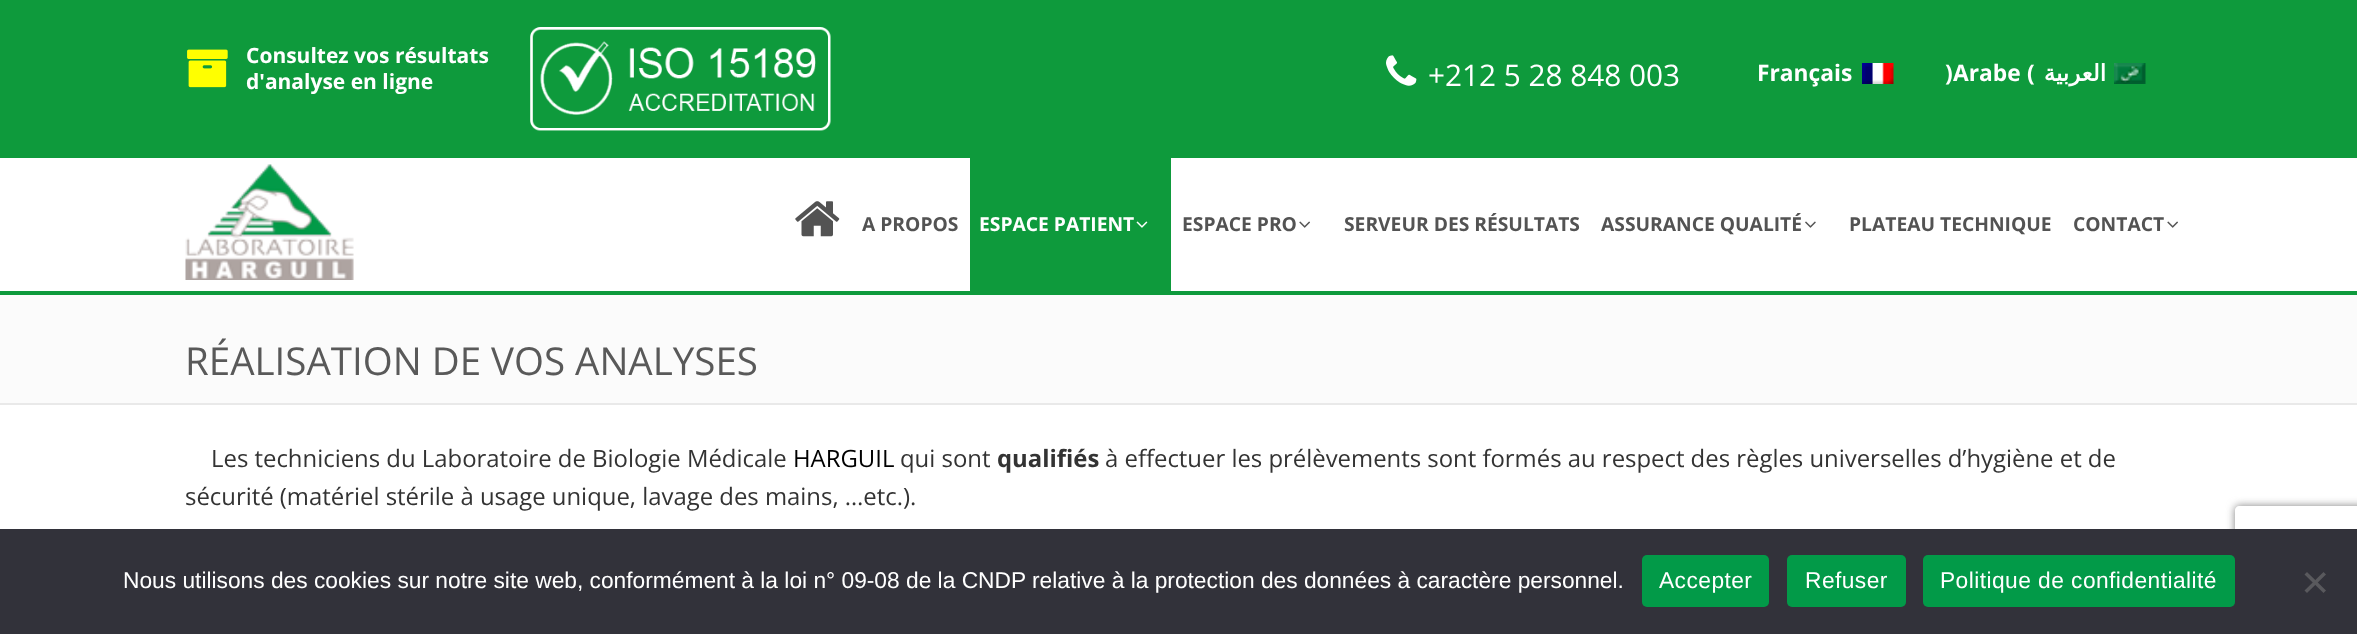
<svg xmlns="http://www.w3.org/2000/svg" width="2357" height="634">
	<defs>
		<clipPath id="clip1"><path d="M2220 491H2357V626H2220ZM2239 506H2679C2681 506 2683 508 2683 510V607C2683 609 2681 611 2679 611H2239C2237 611 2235 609 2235 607V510C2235 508 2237 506 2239 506Z" clip-rule="evenodd" /></clipPath>
	</defs>
	<rect width="100%" height="100%" fill="#FFFFFF" />
	<rect x="0" y="0" width="2357" height="158" fill="#0E9A3C" />
	<image x="187" y="49" width="41" height="39" href="assets/img1.png" />
	<g font-family="Open Sans" font-size="21" font-weight="700" fill="#FFFFFF">
		<text x="246" y="63">Consultez vos résultats</text>
		<text x="246" y="89">d'analyse en ligne</text>
	</g>
	<image x="530" y="27" width="301" height="104" href="assets/img2.png" />
	<image x="1386" y="55" width="31" height="31" href="assets/img3.png" />
	<text x="1428" y="86" font-family="Open Sans" font-size="29.75" fill="#FFFFFF">+212 5 28 848 003</text>
	<text x="1757" y="81" font-family="Open Sans" font-size="22.75" font-weight="700" fill="#FFFFFF">Français</text>
	<image x="1862" y="63" width="32" height="21" href="assets/img4.png" />
	<g font-family="Open Sans" font-size="22.75" font-weight="700" fill="#FFFFFF">
		<text x="1945" y="81">)</text>
		<text x="1953" y="81">Arabe</text>
		<text x="2027" y="81">(</text>
	</g>
	<text x="2106" y="81" font-family="DejaVu Sans" font-size="22.75" font-weight="700" direction="rtl" fill="#FFFFFF">العربية</text>
	<image x="2114" y="63" width="32" height="21" href="assets/img5.png" />
	<image x="185" y="164" width="169" height="116" href="assets/img6.png" />
	<image x="795" y="201" width="45" height="36" href="assets/img7.png" />
	<text x="862" y="231" font-family="Open Sans" font-size="19.25" font-weight="700" fill="#535353">A PROPOS</text>
	<rect x="970" y="158" width="201" height="133" fill="#0E9A3C" />
	<text x="979" y="231" font-family="Open Sans" font-size="19.25" font-weight="700" fill="#FFFFFF">ESPACE PATIENT</text>
	<image x="1136" y="221" width="12" height="7" href="assets/img8.png" />
	<text x="1182" y="231" font-family="Open Sans" font-size="19.25" font-weight="700" fill="#535353">ESPACE PRO</text>
	<image x="1299" y="221" width="11" height="7" href="assets/img9.png" />
	<g font-family="Open Sans" font-size="19.25" font-weight="700" fill="#535353">
		<text x="1344" y="231">SERVEUR DES RÉSULTATS</text>
		<text x="1601" y="231">ASSURANCE QUALITÉ</text>
	</g>
	<image x="1805" y="221" width="11" height="7" href="assets/img10.png" />
	<g font-family="Open Sans" font-size="19.25" font-weight="700" fill="#535353">
		<text x="1849" y="231">PLATEAU TECHNIQUE</text>
		<text x="2073" y="231">CONTACT</text>
	</g>
	<image x="2167" y="221" width="11" height="7" href="assets/img9.png" />
	<rect x="0" y="295" width="2357" height="108" fill="#FBFBFB" />
	<rect x="0" y="291" width="2357" height="4" fill="#0E9A3C" />
	<rect x="0" y="403" width="2357" height="2" fill="#E9E9E9" />
	<text x="185" y="375" font-family="Open Sans" font-size="38.5" fill="#595959">RÉALISATION DE VOS ANALYSES</text>
	<text x="211" y="467" font-family="Open Sans" font-size="23.9" fill="#333333">Les techniciens du Laboratoire de Biologie Médicale</text>
	<text x="793" y="467" font-family="Open Sans" font-size="23.9" fill="#000000">HARGUIL</text>
	<text x="900" y="467" font-family="Open Sans" font-size="23.9" fill="#333333">qui sont</text>
	<text x="997" y="467" font-family="Open Sans" font-size="23.9" font-weight="700" fill="#333333">qualifiés</text>
	<g font-family="Open Sans" font-size="23.9" fill="#333333">
		<text x="1105" y="467">à effectuer les prélèvements sont formés au respect des règles universelles d’hygiène et de</text>
		<text x="185" y="505">sécurité (matériel stérile à usage unique, lavage des mains, …etc.).</text>
	</g>
	<g clip-path="url(#clip1)">
		<rect x="2235" y="506" width="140" height="105" rx="4" fill="#808080" filter="blur(4.5px)" />
	</g>
	<rect x="0" y="529" width="2357" height="105" fill="#32323A" />
	<text x="123" y="588" font-family="Liberation Sans" font-size="22.75" fill="#FFFFFF">Nous utilisons des cookies sur notre site web, conformément à la loi n° 09-08 de la CNDP relative à la protection des données à caractère personnel.</text>
	<rect x="1642" y="555" width="127" height="52" rx="5" fill="#029A48" />
	<text x="1659" y="588" font-family="Liberation Sans" font-size="22.75" letter-spacing="0.45" fill="#FFFFFF">Accepter</text>
	<rect x="1787" y="555" width="119" height="52" rx="5" fill="#029A48" />
	<text x="1805" y="588" font-family="Liberation Sans" font-size="22.75" letter-spacing="0.45" fill="#FFFFFF">Refuser</text>
	<rect x="1923" y="555" width="312" height="52" rx="5" fill="#029A48" />
	<text x="1940" y="588" font-family="Liberation Sans" font-size="22.75" letter-spacing="0.45" fill="#FFFFFF">Politique de confidentialité</text>
	<path d="M2323.5 572L2326 574.5L2307 593L2304.5 590.5Z" fill="#59595D" />
	<path d="M2304.5 574.5L2307 572L2326 590.5L2323.5 593Z" fill="#59595D" />
</svg>
